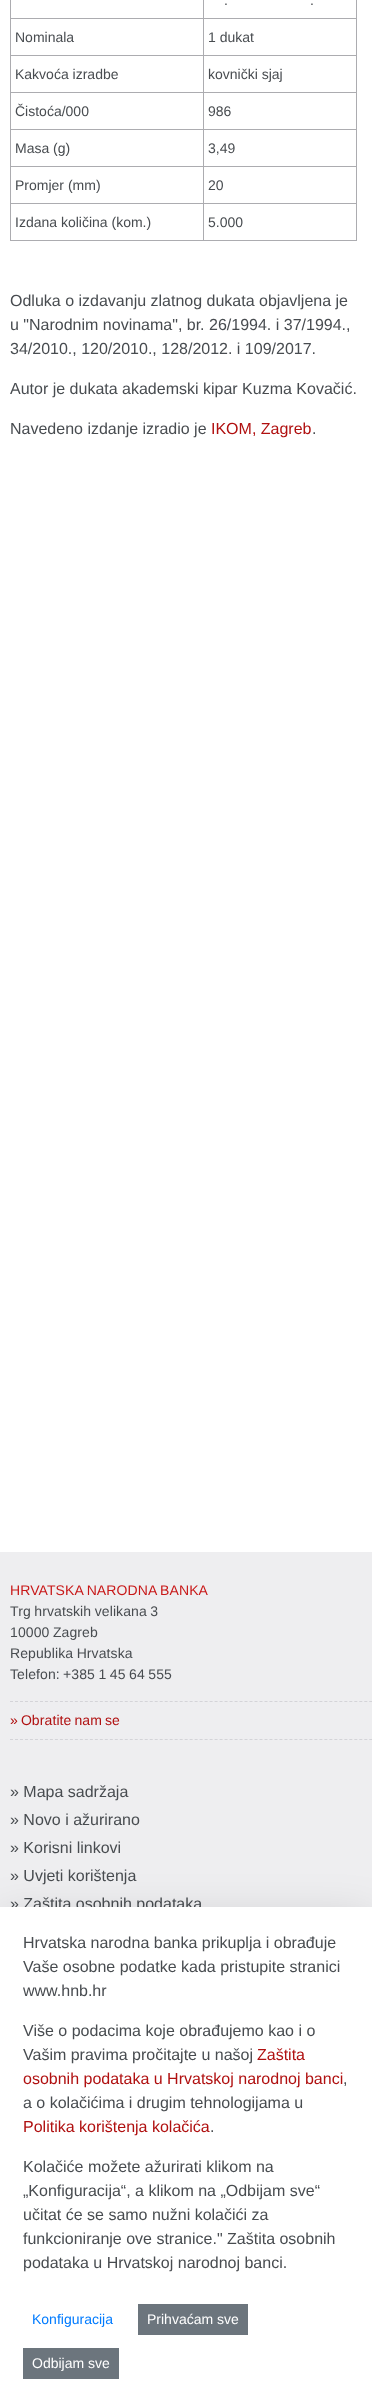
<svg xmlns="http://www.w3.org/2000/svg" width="372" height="2403">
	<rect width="100%" height="100%" fill="#FFFFFF" />
	<rect x="356" y="0" width="1" height="241" fill="#ACACB0" />
	<rect x="10" y="240" width="347" height="1" fill="#ACACB0" />
	<rect x="10" y="0" width="1" height="241" fill="#ACACB0" />
	<rect x="203" y="18" width="154" height="1" fill="#ACACB0" />
	<rect x="203" y="55" width="154" height="1" fill="#ACACB0" />
	<rect x="203" y="92" width="154" height="1" fill="#ACACB0" />
	<rect x="203" y="129" width="154" height="1" fill="#ACACB0" />
	<rect x="203" y="166" width="154" height="1" fill="#ACACB0" />
	<rect x="203" y="203" width="154" height="1" fill="#ACACB0" />
	<rect x="203" y="203" width="1" height="38" fill="#ACACB0" />
	<rect x="10" y="203" width="194" height="1" fill="#ACACB0" />
	<rect x="203" y="166" width="1" height="38" fill="#ACACB0" />
	<rect x="10" y="166" width="194" height="1" fill="#ACACB0" />
	<rect x="203" y="129" width="1" height="38" fill="#ACACB0" />
	<rect x="10" y="129" width="194" height="1" fill="#ACACB0" />
	<rect x="203" y="92" width="1" height="38" fill="#ACACB0" />
	<rect x="10" y="92" width="194" height="1" fill="#ACACB0" />
	<rect x="203" y="55" width="1" height="38" fill="#ACACB0" />
	<rect x="10" y="55" width="194" height="1" fill="#ACACB0" />
	<rect x="203" y="18" width="1" height="38" fill="#ACACB0" />
	<rect x="10" y="18" width="194" height="1" fill="#ACACB0" />
	<rect x="203" y="0" width="1" height="19" fill="#ACACB0" />
	<g font-family="Liberation Sans" font-size="14" fill="#484C50">
		<text x="224" y="5">.</text>
		<text x="310" y="5">.</text>
		<text x="15" y="42">Nominala</text>
		<text x="208" y="42">1 dukat</text>
		<text x="15" y="79">Kakvoća izradbe</text>
		<text x="208" y="79">kovnički sjaj</text>
		<text x="15" y="116">Čistoća/000</text>
		<text x="208" y="116">986</text>
		<text x="15" y="153">Masa (g)</text>
		<text x="208" y="153">3,49</text>
		<text x="15" y="190">Promjer (mm)</text>
		<text x="208" y="190">20</text>
		<text x="15" y="227">Izdana količina (kom.)</text>
		<text x="208" y="227">5.000</text>
	</g>
	<g font-family="Liberation Sans" font-size="16" fill="#484C50">
		<text x="10" y="306">Odluka o izdavanju zlatnog dukata objavljena je</text>
		<text x="10" y="330">u "Narodnim novinama", br. 26/1994. i 37/1994.,</text>
		<text x="10" y="354">34/2010., 120/2010., 128/2012. i 109/2017.</text>
		<text x="10" y="394">Autor je dukata akademski kipar Kuzma Kovačić.</text>
		<text x="10" y="434">Navedeno izdanje izradio je</text>
	</g>
	<text x="211" y="434" font-family="Liberation Sans" font-size="16" fill="#B01010">IKOM, Zagreb</text>
	<text x="312" y="434" font-family="Liberation Sans" font-size="16" fill="#484C50">.</text>
	<rect x="0" y="1552" width="372" height="355" fill="#EEEEF0" />
	<text x="10" y="1595" word-spacing="-0.5" font-family="Liberation Sans" font-size="14" letter-spacing="0.1" fill="#C81818">HRVATSKA NARODNA BANKA</text>
	<g font-family="Liberation Sans" font-size="14" letter-spacing="0.1" fill="#484C50">
		<text x="10" y="1616" word-spacing="-0.5">Trg hrvatskih velikana 3</text>
		<text x="10" y="1637" word-spacing="-0.5">10000 Zagreb</text>
		<text x="10" y="1658" word-spacing="-0.5">Republika Hrvatska</text>
		<text x="10" y="1679">Telefon:</text>
		<text x="63" y="1679" word-spacing="-0.5">+385 1 45 64 555</text>
	</g>
	<path d="M10 1701.5H372" fill="none" stroke="#D4D4D8" stroke-dasharray="3 1.99" />
	<path d="M10 1739.5H372" fill="none" stroke="#D4D4D8" stroke-dasharray="3 1.99" />
	<text x="10" y="1725" word-spacing="-1" font-family="Liberation Sans" font-size="14" letter-spacing="0.1" fill="#B01010">» Obratite nam se</text>
	<g font-family="Liberation Sans" font-size="16" fill="#484C50">
		<text x="10" y="1797">» Mapa sadržaja</text>
		<text x="10" y="1825">» Novo i ažurirano</text>
		<text x="10" y="1853">» Korisni linkovi</text>
		<text x="10" y="1881">» Uvjeti korištenja</text>
		<text x="10" y="1909">» Zaštita osobnih podataka</text>
	</g>
	<rect x="0" y="1923" width="372" height="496" fill="#000000" fill-opacity="0.18" filter="blur(24px)" />
	<rect x="0" y="1907" width="372" height="496" fill="#FFFFFF" />
	<g font-family="Liberation Sans" font-size="16" fill="#484C50">
		<text x="23" y="1948">Hrvatska narodna banka prikuplja i obrađuje</text>
		<text x="23" y="1972">Vaše osobne podatke kada pristupite stranici</text>
		<text x="23" y="1996">www.hnb.hr</text>
		<text x="23" y="2036">Više o podacima koje obrađujemo kao i o</text>
		<text x="23" y="2060">Vašim pravima pročitajte u našoj</text>
	</g>
	<g font-family="Liberation Sans" font-size="16" fill="#B01010">
		<text x="257" y="2060">Zaštita</text>
		<text x="23" y="2084">osobnih podataka u Hrvatskoj narodnoj banci</text>
	</g>
	<g font-family="Liberation Sans" font-size="16" fill="#484C50">
		<text x="343" y="2084">,</text>
		<text x="23" y="2108">a o kolačićima i drugim tehnologijama u</text>
	</g>
	<text x="23" y="2132" font-family="Liberation Sans" font-size="16" fill="#B01010">Politika korištenja kolačića</text>
	<g font-family="Liberation Sans" font-size="16" fill="#484C50">
		<text x="210" y="2132">.</text>
		<text x="23" y="2172">Kolačiće možete ažurirati klikom na</text>
		<text x="23" y="2196">„Konfiguracija“, a klikom na „Odbijam sve“</text>
		<text x="23" y="2220">učitat će se samo nužni kolačići za</text>
		<text x="23" y="2244">funkcioniranje ove stranice." Zaštita osobnih</text>
		<text x="23" y="2268">podataka u Hrvatskoj narodnoj banci.</text>
	</g>
	<text x="32" y="2324" font-family="Liberation Sans" font-size="14" fill="#007BFF">Konfiguracija</text>
	<rect x="138" y="2304" width="110" height="31" fill="#6C757D" />
	<text x="147" y="2324" font-family="Liberation Sans" font-size="14" fill="#FFFFFF">Prihvaćam sve</text>
	<rect x="23" y="2348" width="96" height="31" fill="#6C757D" />
	<text x="32" y="2368" font-family="Liberation Sans" font-size="14" fill="#FFFFFF">Odbijam sve</text>
</svg>
